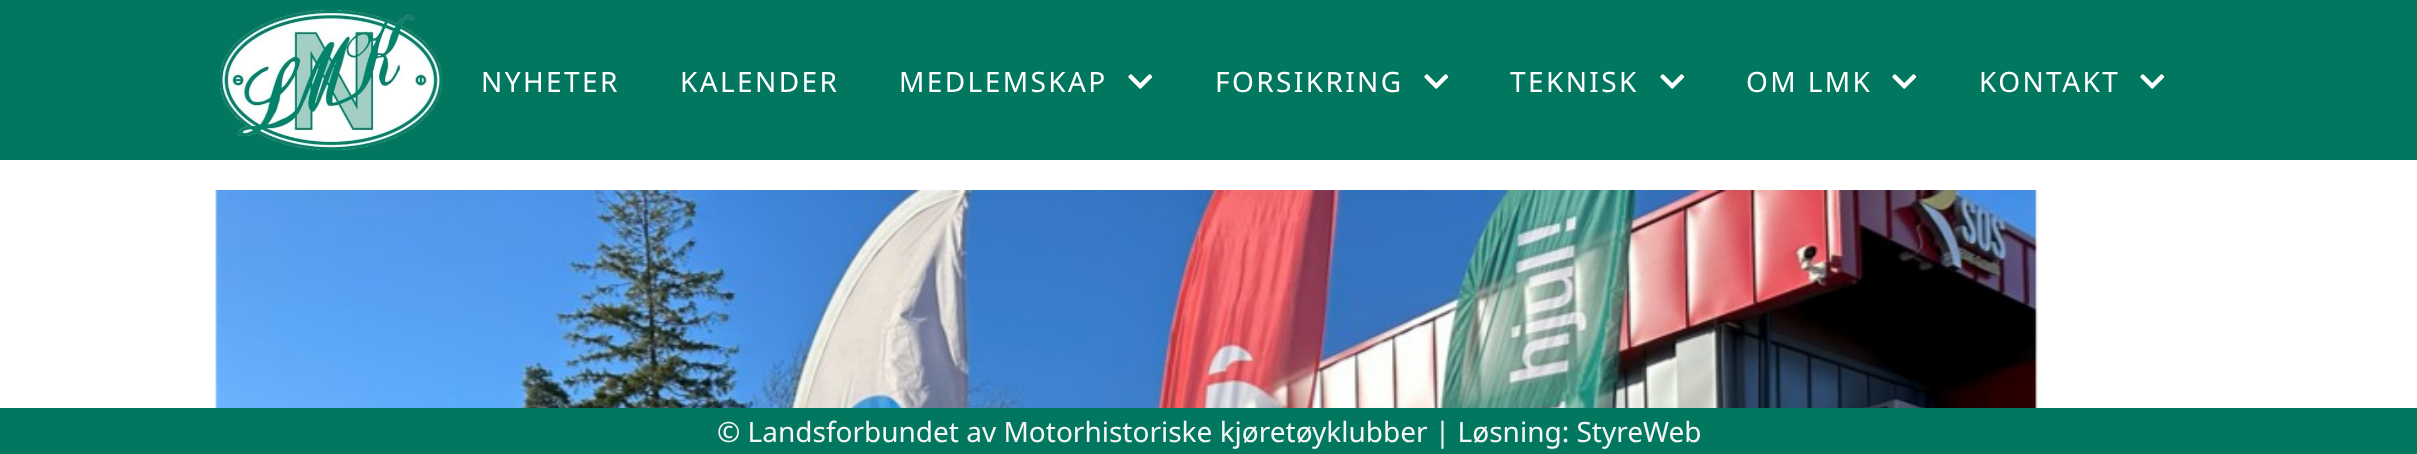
<svg xmlns="http://www.w3.org/2000/svg" width="2417" height="454">
	<rect width="100%" height="100%" fill="#FFFFFF" />
	<rect x="0" y="0" width="2417" height="160" fill="#00775E" />
	<image x="220" y="10" width="222" height="140" href="assets/img1.png" />
	<g font-family="Noto Sans" font-size="28" letter-spacing="2.4" fill="#FFFFFF">
		<text x="481" y="92">NYHETER</text>
		<text x="680" y="92">KALENDER</text>
		<text x="899" y="92">MEDLEMSKAP</text>
	</g>
	<image x="1128" y="74" width="25" height="15" href="assets/img2.png" />
	<text x="1215" y="92" font-family="Noto Sans" font-size="28" letter-spacing="2.4" fill="#FFFFFF">FORSIKRING</text>
	<image x="1424" y="74" width="25" height="15" href="assets/img2.png" />
	<text x="1510" y="92" font-family="Noto Sans" font-size="28" letter-spacing="2.4" fill="#FFFFFF">TEKNISK</text>
	<image x="1660" y="74" width="25" height="15" href="assets/img2.png" />
	<text x="1746" y="92" font-family="Noto Sans" font-size="28" letter-spacing="2.4" fill="#FFFFFF">OM LMK</text>
	<image x="1892" y="74" width="25" height="15" href="assets/img2.png" />
	<text x="1979" y="92" font-family="Noto Sans" font-size="28" letter-spacing="2.4" fill="#FFFFFF">KONTAKT</text>
	<image x="2140" y="74" width="25" height="15" href="assets/img2.png" />
	<image x="215" y="190" width="1823" height="218" href="assets/img3.png" />
	<rect x="0" y="408" width="2417" height="46" fill="#00775E" />
	<text x="717" y="442" font-family="Noto Sans" font-size="28" fill="#F5F5F5">© Landsforbundet av Motorhistoriske kjøretøyklubber | Løsning: StyreWeb</text>
</svg>
